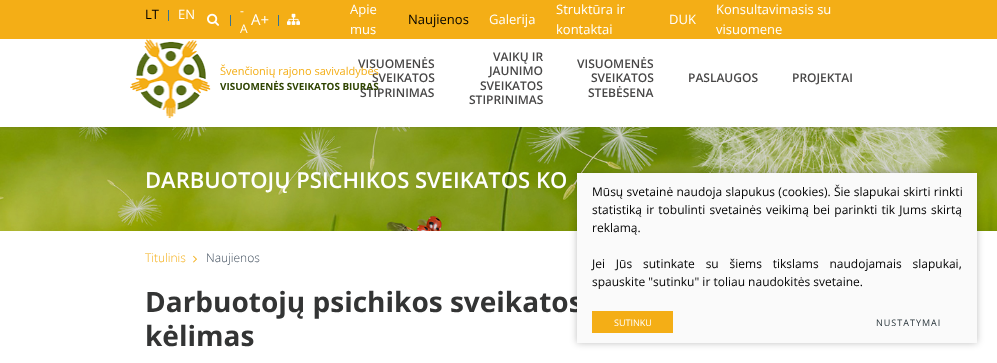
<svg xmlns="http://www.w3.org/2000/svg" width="997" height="363">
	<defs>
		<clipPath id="clip1"><rect x="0" y="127" width="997" height="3" /></clipPath>
	</defs>
	<rect width="100%" height="100%" fill="#FFFFFF" />
	<image x="0" y="127" width="997" height="104" href="assets/img4.png" />
	<g clip-path="url(#clip1)">
		<rect x="0" y="0" width="997" height="127" fill="#000000" fill-opacity="0.15" filter="blur(2.5px)" />
	</g>
	<rect x="0" y="0" width="997" height="39" fill="#F4AE16" />
	<text x="145" y="19" font-family="Open Sans" font-size="13" fill="#000000">LT</text>
	<rect x="168" y="10" width="1" height="11" fill="#367492" />
	<text x="178" y="19" font-family="Open Sans" font-size="13" fill="#FFFFFF">EN</text>
	<image x="207" y="13" width="12" height="13" href="assets/img1.png" />
	<rect x="230" y="15" width="1" height="11" fill="#367492" />
	<g font-family="Open Sans" font-size="12" fill="#FFFFFF">
		<text x="240" y="15">-</text>
		<text x="240" y="33">A</text>
	</g>
	<text x="251" y="25" font-family="Open Sans" font-size="15" fill="#FFFFFF">A+</text>
	<rect x="278" y="15" width="1" height="11" fill="#367492" />
	<image x="287" y="13" width="13" height="12" href="assets/img2.png" />
	<g font-family="Open Sans" font-size="13" fill="#FFFFFF">
		<text x="350" y="14">Apie</text>
		<text x="350" y="34">mus</text>
	</g>
	<text x="408" y="24" font-family="Open Sans" font-size="13" fill="#000000">Naujienos</text>
	<g font-family="Open Sans" font-size="13" fill="#FFFFFF">
		<text x="489" y="24">Galerija</text>
		<text x="556" y="14">Struktūra ir</text>
		<text x="556" y="34">kontaktai</text>
		<text x="669" y="24">DUK</text>
		<text x="716" y="14">Konsultavimasis su</text>
		<text x="716" y="34">visuomene</text>
	</g>
	<g font-family="Open Sans" font-size="12" font-weight="600" fill="#484747">
		<text x="358" y="68">VISUOMENĖS</text>
		<text x="372" y="82">SVEIKATOS</text>
		<text x="360" y="97">STIPRINIMAS</text>
		<text x="493" y="61">VAIKŲ IR</text>
		<text x="489" y="75">JAUNIMO</text>
		<text x="480" y="90">SVEIKATOS</text>
		<text x="469" y="104">STIPRINIMAS</text>
		<text x="577" y="68">VISUOMENĖS</text>
		<text x="591" y="82">SVEIKATOS</text>
		<text x="588" y="97">STEBĖSENA</text>
		<text x="688" y="82">PASLAUGOS</text>
		<text x="792" y="82">PROJEKTAI</text>
	</g>
	<image x="130" y="39" width="81" height="80" href="assets/img3.png" />
	<text x="220" y="75" font-family="Open Sans" font-size="11" fill="#F4AE16">Švenčionių rajono savivaldybės</text>
	<text x="220" y="90" font-family="Open Sans" font-size="9.9" font-weight="700" fill="#2F4400">VISUOMENĖS SVEIKATOS BIURAS</text>
	<text x="145" y="188" font-family="Open Sans" font-size="22" font-weight="600" fill="#FFFFFF">DARBUOTOJŲ PSICHIKOS SVEIKATOS KO</text>
	<text x="145" y="262" font-family="Open Sans" font-size="12" font-weight="300" fill="#F4AE16">Titulinis</text>
	<image x="193" y="255" width="4" height="8" href="assets/img5.png" />
	<text x="206" y="262" font-family="Open Sans" font-size="12" font-weight="300" fill="#404E5D">Naujienos</text>
	<g font-family="Open Sans" font-size="28" font-weight="700" fill="#333434">
		<text x="145" y="312">Darbuotojų psichikos sveikatos</text>
		<text x="145" y="346">kėlimas</text>
	</g>
	<rect x="577" y="173" width="400" height="170" fill="#000000" fill-opacity="0.25" filter="blur(3.5px)" />
	<rect x="577" y="173" width="400" height="170" fill="#FAFAFA" />
	<g font-family="Open Sans" font-size="12" fill="#000000">
		<text x="592" y="196" word-spacing="0.25">Mūsų svetainė naudoja slapukus (cookies). Šie slapukai skirti rinkti</text>
		<text x="592" y="214" word-spacing="1.1">statistiką ir tobulinti svetainės veikimą bei parinkti tik Jums skirtą</text>
		<text x="592" y="232">reklamą.</text>
		<text x="592" y="268" word-spacing="7.75">Jei Jūs sutinkate su šiems tikslams naudojamais slapukai,</text>
		<text x="592" y="286">spauskite "sutinku" ir toliau naudokitės svetaine.</text>
	</g>
	<rect x="592" y="311" width="81" height="22" fill="#F4AE16" />
	<text x="614" y="326" font-family="Open Sans" font-size="9" fill="#FFFFFF">SUTINKU</text>
	<text x="876" y="326" font-family="Open Sans" font-size="9" letter-spacing="1" fill="#263238">NUSTATYMAI</text>
</svg>
